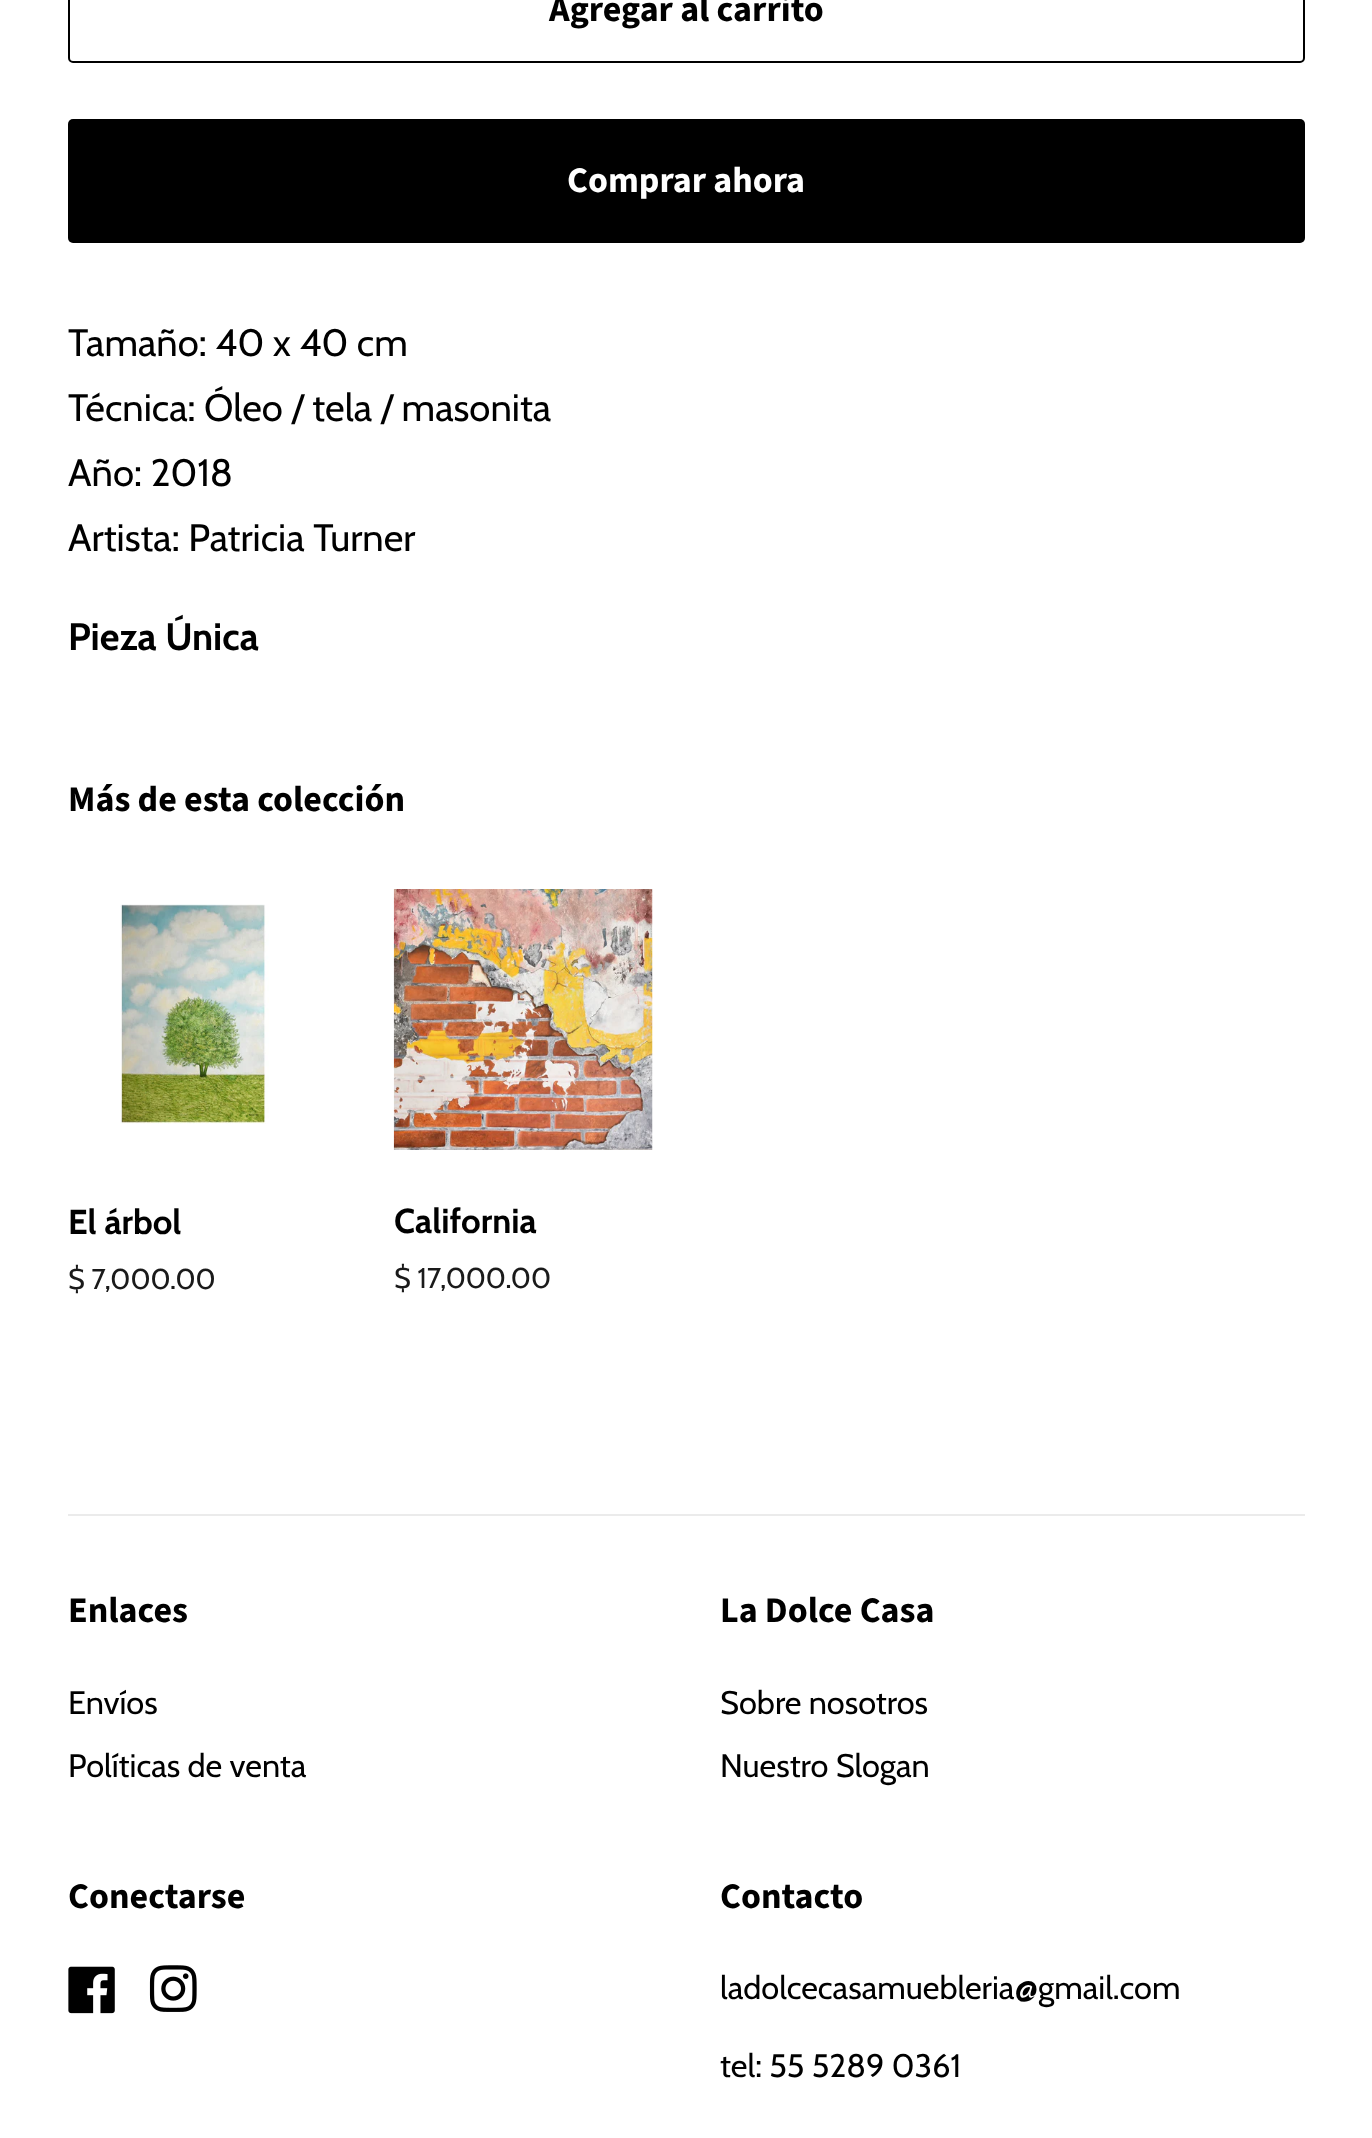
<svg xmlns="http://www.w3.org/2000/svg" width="1372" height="2138">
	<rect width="100%" height="100%" fill="#FFFFFF" />
	<rect x="69" y="-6" width="1235" height="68" rx="4" fill="none" stroke="#000000" stroke-width="2" />
	<text x="549" y="21" font-family="Source Sans Pro" font-size="36" font-weight="700" fill="#000000">Agregar al carrito</text>
	<rect x="68" y="119" width="1237" height="124" rx="5" fill="#000000" />
	<text x="567" y="192" font-family="Source Sans Pro" font-size="36" font-weight="700" fill="#FFFFFF">Comprar ahora</text>
	<g font-family="Cabin" font-size="38.25" fill="#000000">
		<text x="68" y="356">Tamaño: 40 x 40 cm</text>
		<text x="68" y="421">Técnica: Óleo / tela / masonita</text>
		<text x="68" y="486">Año: 2018</text>
		<text x="68" y="551">Artista: Patricia Turner</text>
	</g>
	<text x="68" y="650" font-family="Cabin" font-size="38.25" font-weight="700" fill="#000000">Pieza Única</text>
	<text x="68" y="811" font-family="Source Sans Pro" font-size="36" font-weight="700" fill="#000000">Más de esta colección</text>
	<image x="120" y="904" width="149" height="220" href="assets/img1.png" />
	<text x="68" y="1234" font-family="Cabin" font-size="34.5" font-weight="700" fill="#000000">El árbol</text>
	<text x="68" y="1289" font-family="Cabin" font-size="28.75" fill="#1A1A1A">$ 7,000.00</text>
	<image x="393" y="889" width="260" height="261" href="assets/img2.png" />
	<text x="394" y="1233" font-family="Cabin" font-size="34.5" font-weight="700" fill="#000000">California</text>
	<text x="394" y="1288" font-family="Cabin" font-size="28.75" fill="#1A1A1A">$ 17,000.00</text>
	<rect x="68" y="1514" width="1237" height="2" fill="#EBEBEB" />
	<text x="68" y="1622" font-family="Source Sans Pro" font-size="36" font-weight="700" fill="#000000">Enlaces</text>
	<g font-family="Cabin" font-size="32.5" fill="#000000">
		<text x="68" y="1714">Envíos</text>
		<text x="68" y="1777">Políticas de venta</text>
	</g>
	<text x="720" y="1622" font-family="Source Sans Pro" font-size="36" font-weight="700" fill="#000000">La Dolce Casa</text>
	<g font-family="Cabin" font-size="32.5" fill="#000000">
		<text x="720" y="1714">Sobre nosotros</text>
		<text x="720" y="1777">Nuestro Slogan</text>
	</g>
	<text x="68" y="1908" font-family="Source Sans Pro" font-size="36" font-weight="700" fill="#000000">Conectarse</text>
	<image x="68" y="1966" width="47" height="48" href="assets/img3.png" />
	<image x="149" y="1965" width="48" height="47" href="assets/img4.png" />
	<text x="720" y="1908" font-family="Source Sans Pro" font-size="36" font-weight="700" fill="#000000">Contacto</text>
	<g font-family="Cabin" font-size="32.5" fill="#000000">
		<text x="720" y="1999">ladolcecasamuebleria@gmail.com</text>
		<text x="720" y="2077">tel: 55 5289 0361</text>
	</g>
</svg>
